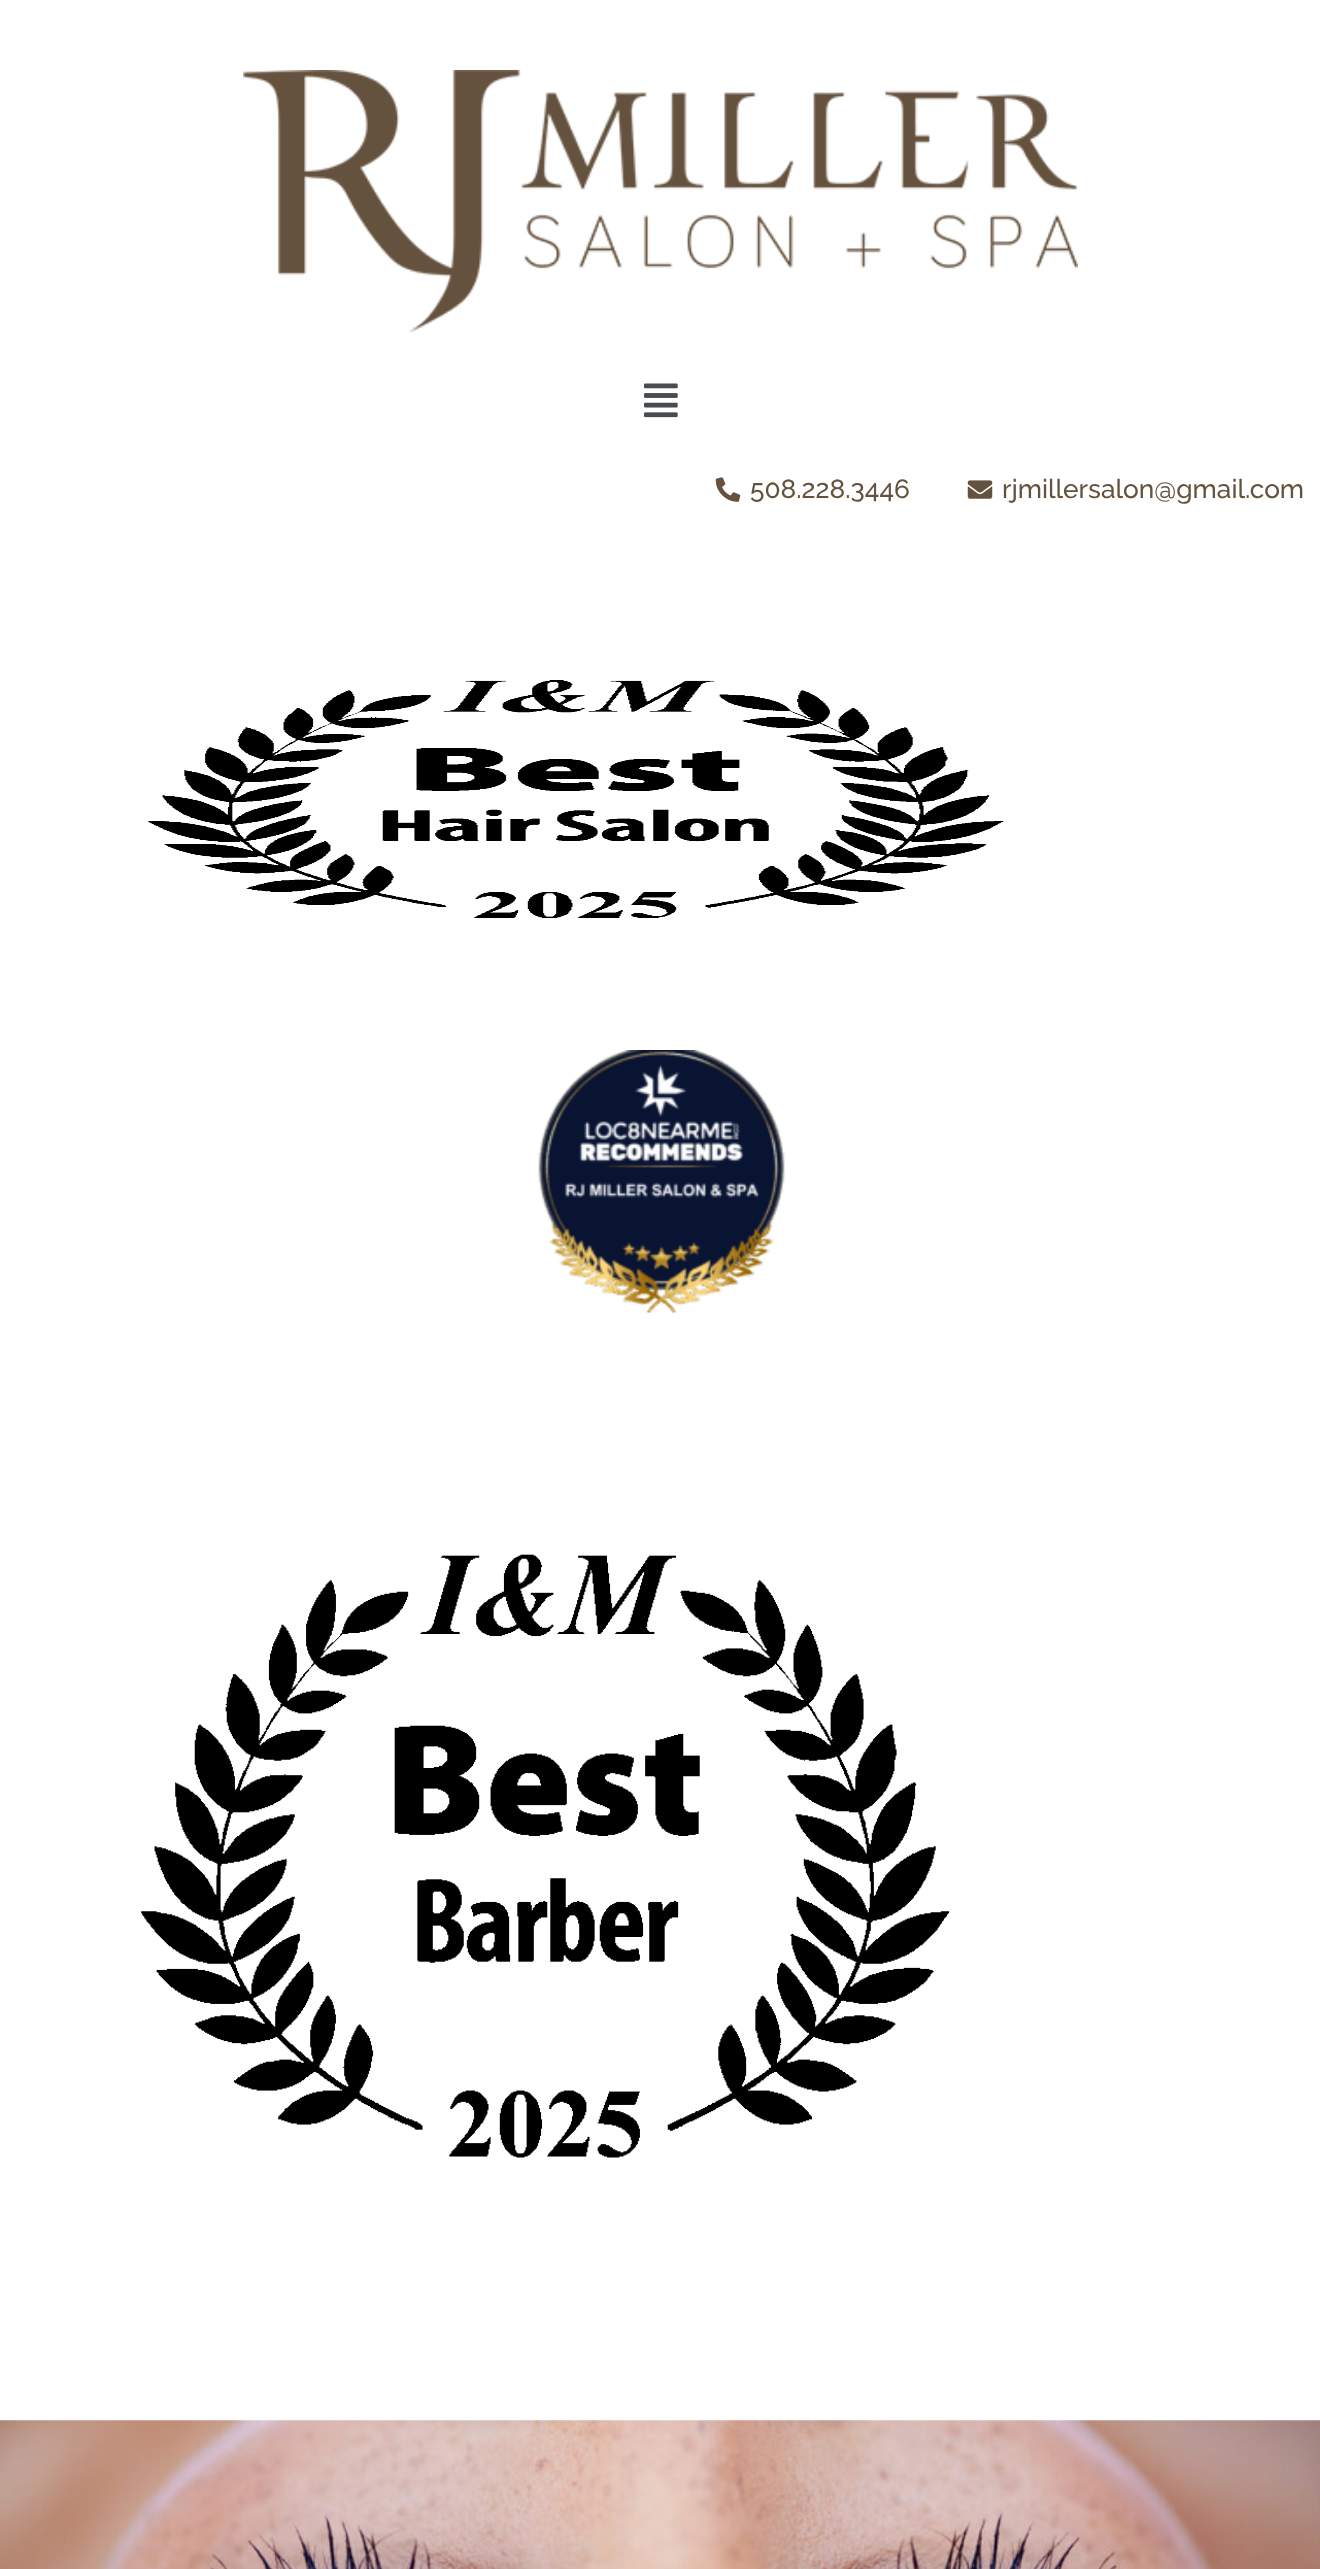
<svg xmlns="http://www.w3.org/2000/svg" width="1320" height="2569">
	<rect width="100%" height="100%" fill="#FFFFFF" />
	<image x="243" y="70" width="835" height="263" href="assets/img1.png" />
	<image x="644" y="383" width="34" height="35" href="assets/img2.png" />
	<image x="715" y="477" width="26" height="25" href="assets/img3.png" />
	<text x="750" y="498" font-family="Raleway" font-size="26.25" font-weight="500" fill="#65523E">508.228.3446</text>
	<image x="967" y="480" width="26" height="19" href="assets/img4.png" />
	<text x="1002" y="498" font-family="Raleway" font-size="26.25" font-weight="500" fill="#65523E">rjmillersalon@gmail.com</text>
	<image x="148" y="680" width="856" height="238" href="assets/img5.png" />
	<image x="537" y="1050" width="249" height="263" href="assets/img6.png" />
	<image x="141" y="1554" width="809" height="604" href="assets/img7.png" />
	<image x="0" y="2420" width="1320" height="149" href="assets/img8.png" />
</svg>
